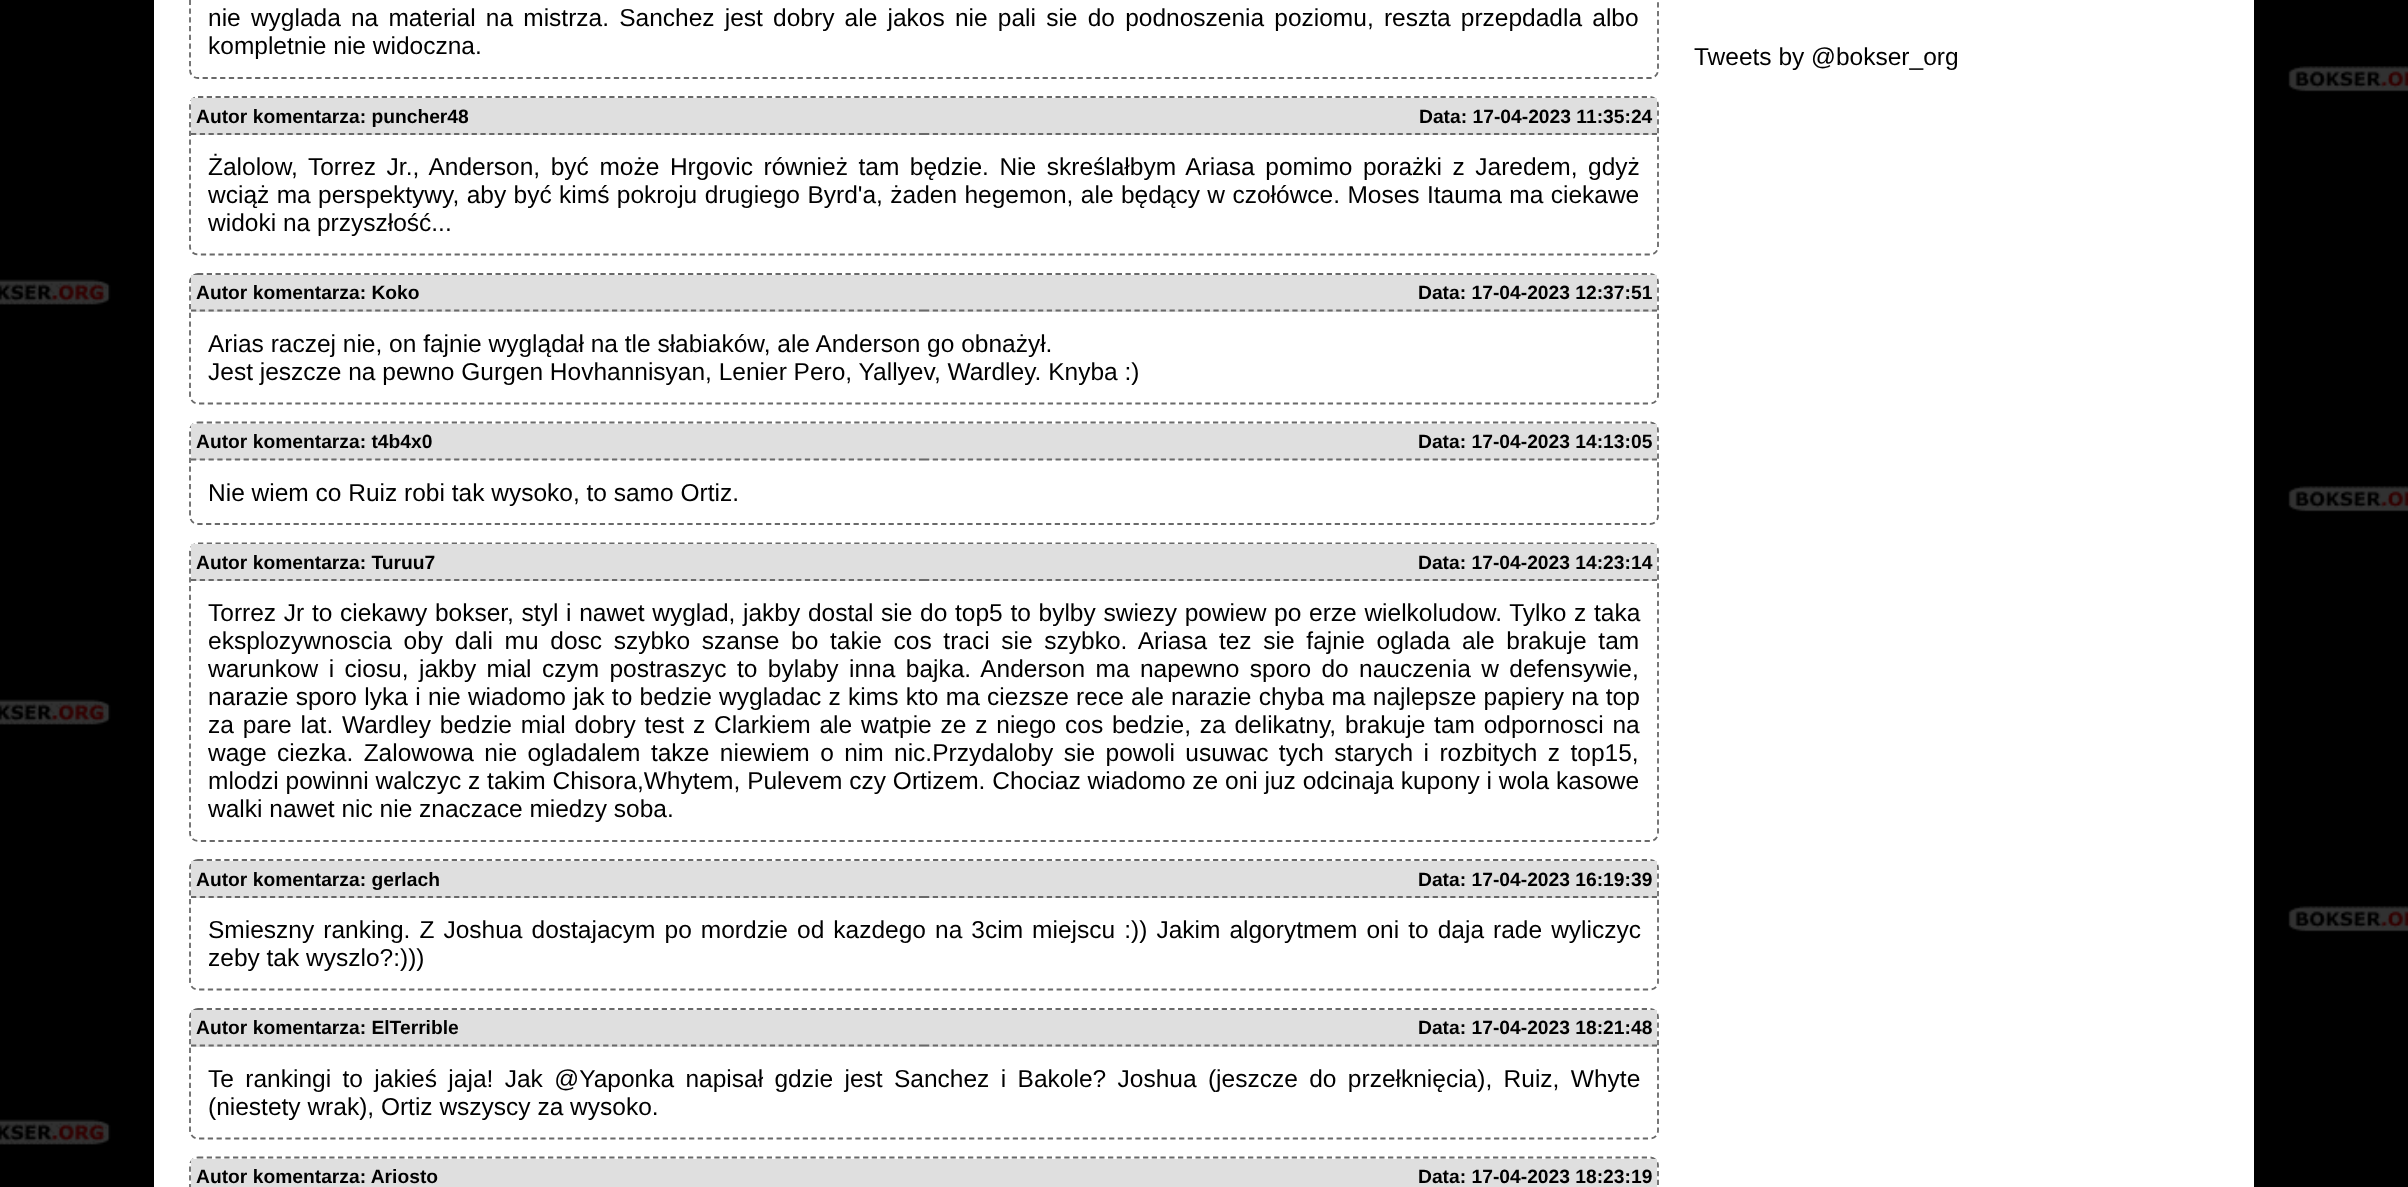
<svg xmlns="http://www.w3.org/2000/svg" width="2408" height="1187">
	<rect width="100%" height="100%" fill="#000000" />
	<image x="0" y="66" width="2408" height="1079" href="assets/img1.png" />
	<rect x="154" y="0" width="2100" height="1187" fill="#FFFFFF" />
	<path d="M198-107.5H1650C1654.5-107.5 1658-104 1658-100V70C1658 74.5 1654.5 78 1650 78H198C193.5 78 190 74.5 190 70V-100C190-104 193.5-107.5 198-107.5Z" fill="none" stroke="#696969" stroke-width="1.8" stroke-dasharray="5.25 3.5" />
	<g font-family="Liberation Sans" font-size="24.5" fill="#000000">
		<text x="208" y="26" word-spacing="3.4">nie wyglada na material na mistrza. Sanchez jest dobry ale jakos nie pali sie do podnoszenia poziomu, reszta przepdadla albo</text>
		<text x="208" y="54">kompletnie nie widoczna.</text>
	</g>
	<path d="M198 97H1650C1654.5 97 1658 100.5 1658 105V247C1658 251 1654.5 254.5 1650 254.5H198C193.5 254.5 190 251 190 247V105C190 100.5 193.5 97 198 97Z" fill="none" stroke="#696969" stroke-width="1.8" stroke-dasharray="5.25 3.5" />
	<rect x="191" y="98" width="1466" height="37" fill="#DFDFDF" />
	<path d="M191 134H924" fill="none" stroke="#696969" stroke-width="1.8" stroke-dasharray="5.25 3.52" />
	<text x="196" y="123" font-family="Liberation Sans" font-size="19.25" font-weight="700" fill="#000000">Autor komentarza: puncher48</text>
	<path d="M924 134H1657" fill="none" stroke="#696969" stroke-width="1.8" stroke-dasharray="5.25 3.52" />
	<text x="1419" y="123" font-family="Liberation Sans" font-size="19.25" font-weight="700" fill="#000000">Data: 17-04-2023 11:35:24</text>
	<g font-family="Liberation Sans" font-size="24.5" fill="#000000">
		<text x="208" y="175" word-spacing="3.75">Żalolow, Torrez Jr., Anderson, być może Hrgovic również tam będzie. Nie skreślałbym Ariasa pomimo porażki z Jaredem, gdyż</text>
		<text x="208" y="203" word-spacing="0.6">wciąż ma perspektywy, aby być kimś pokroju drugiego Byrd'a, żaden hegemon, ale będący w czołówce. Moses Itauma ma ciekawe</text>
		<text x="208" y="231">widoki na przyszłość...</text>
	</g>
	<path d="M198 274H1650C1654.5 274 1658 277.5 1658 282V395.5C1658 400 1654.5 403.5 1650 403.5H198C193.5 403.5 190 400 190 395.5V282C190 277.5 193.5 274 198 274Z" fill="none" stroke="#696969" stroke-width="1.8" stroke-dasharray="5.25 3.5" />
	<rect x="191" y="275" width="1466" height="37" fill="#DFDFDF" />
	<path d="M191 310.5H924" fill="none" stroke="#696969" stroke-width="1.8" stroke-dasharray="5.25 3.52" />
	<text x="196" y="299" font-family="Liberation Sans" font-size="19.25" font-weight="700" fill="#000000">Autor komentarza: Koko</text>
	<path d="M924 310.5H1657" fill="none" stroke="#696969" stroke-width="1.8" stroke-dasharray="5.25 3.52" />
	<text x="1418" y="299" font-family="Liberation Sans" font-size="19.25" font-weight="700" fill="#000000">Data: 17-04-2023 12:37:51</text>
	<g font-family="Liberation Sans" font-size="24.5" fill="#000000">
		<text x="208" y="352">Arias raczej nie, on fajnie wyglądał na tle słabiaków, ale Anderson go obnażył.</text>
		<text x="208" y="380">Jest jeszcze na pewno Gurgen Hovhannisyan, Lenier Pero, Yallyev, Wardley. Knyba :)</text>
	</g>
	<path d="M198 422.5H1650C1654.5 422.5 1658 426 1658 430.5V516C1658 520.5 1654.5 524 1650 524H198C193.5 524 190 520.5 190 516V430.5C190 426 193.5 422.5 198 422.5Z" fill="none" stroke="#696969" stroke-width="1.8" stroke-dasharray="5.25 3.5" />
	<rect x="191" y="424" width="1466" height="36" fill="#DFDFDF" />
	<path d="M191 459.5H924" fill="none" stroke="#696969" stroke-width="1.8" stroke-dasharray="5.25 3.52" />
	<text x="196" y="448" font-family="Liberation Sans" font-size="19.25" font-weight="700" fill="#000000">Autor komentarza: t4b4x0</text>
	<path d="M924 459.5H1657" fill="none" stroke="#696969" stroke-width="1.8" stroke-dasharray="5.25 3.52" />
	<text x="1418" y="448" font-family="Liberation Sans" font-size="19.25" font-weight="700" fill="#000000">Data: 17-04-2023 14:13:05</text>
	<text x="208" y="501" font-family="Liberation Sans" font-size="24.5" fill="#000000">Nie wiem co Ruiz robi tak wysoko, to samo Ortiz.</text>
	<path d="M198 543.5H1650C1654.5 543.5 1658 547 1658 551V833C1658 837.5 1654.5 841 1650 841H198C193.5 841 190 837.5 190 833V551C190 547 193.5 543.5 198 543.5Z" fill="none" stroke="#696969" stroke-width="1.8" stroke-dasharray="5.25 3.5" />
	<rect x="191" y="544" width="1466" height="37" fill="#DFDFDF" />
	<path d="M191 580H924" fill="none" stroke="#696969" stroke-width="1.8" stroke-dasharray="5.25 3.52" />
	<text x="196" y="569" font-family="Liberation Sans" font-size="19.25" font-weight="700" fill="#000000">Autor komentarza: Turuu7</text>
	<path d="M924 580H1657" fill="none" stroke="#696969" stroke-width="1.8" stroke-dasharray="5.25 3.52" />
	<text x="1418" y="569" font-family="Liberation Sans" font-size="19.25" font-weight="700" fill="#000000">Data: 17-04-2023 14:23:14</text>
	<g font-family="Liberation Sans" font-size="24.5" fill="#000000">
		<text x="208" y="621" word-spacing="0.9">Torrez Jr to ciekawy bokser, styl i nawet wyglad, jakby dostal sie do top5 to bylby swiezy powiew po erze wielkoludow. Tylko z taka</text>
		<text x="208" y="649" word-spacing="4.9">eksplozywnoscia oby dali mu dosc szybko szanse bo takie cos traci sie szybko. Ariasa tez sie fajnie oglada ale brakuje tam</text>
		<text x="208" y="677" word-spacing="3.6">warunkow i ciosu, jakby mial czym postraszyc to bylaby inna bajka. Anderson ma napewno sporo do nauczenia w defensywie,</text>
		<text x="208" y="705" word-spacing="0.5">narazie sporo lyka i nie wiadomo jak to bedzie wygladac z kims kto ma ciezsze rece ale narazie chyba ma najlepsze papiery na top</text>
		<text x="208" y="733" word-spacing="2">za pare lat. Wardley bedzie mial dobry test z Clarkiem ale watpie ze z niego cos bedzie, za delikatny, brakuje tam odpornosci na</text>
		<text x="208" y="761" word-spacing="3.6">wage ciezka. Zalowowa nie ogladalem takze niewiem o nim nic.Przydaloby sie powoli usuwac tych starych i rozbitych z top15,</text>
		<text x="208" y="789">mlodzi powinni walczyc z takim Chisora,Whytem, Pulevem czy Ortizem. Chociaz wiadomo ze oni juz odcinaja kupony i wola kasowe</text>
		<text x="208" y="817">walki nawet nic nie znaczace miedzy soba.</text>
	</g>
	<path d="M198 860H1650C1654.5 860 1658 863.5 1658 868V982C1658 986 1654.5 989.5 1650 989.5H198C193.5 989.5 190 986 190 982V868C190 863.5 193.5 860 198 860Z" fill="none" stroke="#696969" stroke-width="1.8" stroke-dasharray="5.25 3.5" />
	<rect x="191" y="861" width="1466" height="37" fill="#DFDFDF" />
	<path d="M191 897H924" fill="none" stroke="#696969" stroke-width="1.8" stroke-dasharray="5.25 3.52" />
	<text x="196" y="886" font-family="Liberation Sans" font-size="19.25" font-weight="700" fill="#000000">Autor komentarza: gerlach</text>
	<path d="M924 897H1657" fill="none" stroke="#696969" stroke-width="1.8" stroke-dasharray="5.25 3.52" />
	<text x="1418" y="886" font-family="Liberation Sans" font-size="19.25" font-weight="700" fill="#000000">Data: 17-04-2023 16:19:39</text>
	<g font-family="Liberation Sans" font-size="24.5" fill="#000000">
		<text x="208" y="938" word-spacing="2.25">Smieszny ranking. Z Joshua dostajacym po mordzie od kazdego na 3cim miejscu :)) Jakim algorytmem oni to daja rade wyliczyc</text>
		<text x="208" y="966">zeby tak wyszlo?:)))</text>
	</g>
	<path d="M198 1009H1650C1654.5 1009 1658 1012.5 1658 1017V1130.5C1658 1135 1654.5 1138.5 1650 1138.5H198C193.5 1138.5 190 1135 190 1130.5V1017C190 1012.5 193.5 1009 198 1009Z" fill="none" stroke="#696969" stroke-width="1.8" stroke-dasharray="5.25 3.5" />
	<rect x="191" y="1010" width="1466" height="37" fill="#DFDFDF" />
	<path d="M191 1045.5H924" fill="none" stroke="#696969" stroke-width="1.8" stroke-dasharray="5.25 3.52" />
	<text x="196" y="1034" font-family="Liberation Sans" font-size="19.25" font-weight="700" fill="#000000">Autor komentarza: ElTerrible</text>
	<path d="M924 1045.5H1657" fill="none" stroke="#696969" stroke-width="1.8" stroke-dasharray="5.25 3.52" />
	<text x="1418" y="1034" font-family="Liberation Sans" font-size="19.25" font-weight="700" fill="#000000">Data: 17-04-2023 18:21:48</text>
	<g font-family="Liberation Sans" font-size="24.5" fill="#000000">
		<text x="208" y="1087" word-spacing="4.6">Te rankingi to jakieś jaja! Jak @Yaponka napisał gdzie jest Sanchez i Bakole? Joshua (jeszcze do przełknięcia), Ruiz, Whyte</text>
		<text x="208" y="1115">(niestety wrak), Ortiz wszyscy za wysoko.</text>
	</g>
	<path d="M198 1157.5H1650C1654.5 1157.5 1658 1161 1658 1165.5V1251C1658 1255.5 1654.5 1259 1650 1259H198C193.5 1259 190 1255.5 190 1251V1165.5C190 1161 193.5 1157.5 198 1157.5Z" fill="none" stroke="#696969" stroke-width="1.8" stroke-dasharray="5.25 3.5" />
	<rect x="191" y="1159" width="1466" height="28" fill="#DFDFDF" />
	<g font-family="Liberation Sans" font-size="19.25" font-weight="700" fill="#000000">
		<text x="196" y="1183">Autor komentarza: Ariosto</text>
		<text x="1418" y="1183">Data: 17-04-2023 18:23:19</text>
	</g>
	<text x="1694" y="65" font-family="Liberation Sans" font-size="24.5" fill="#000000">Tweets by @bokser_org</text>
</svg>
